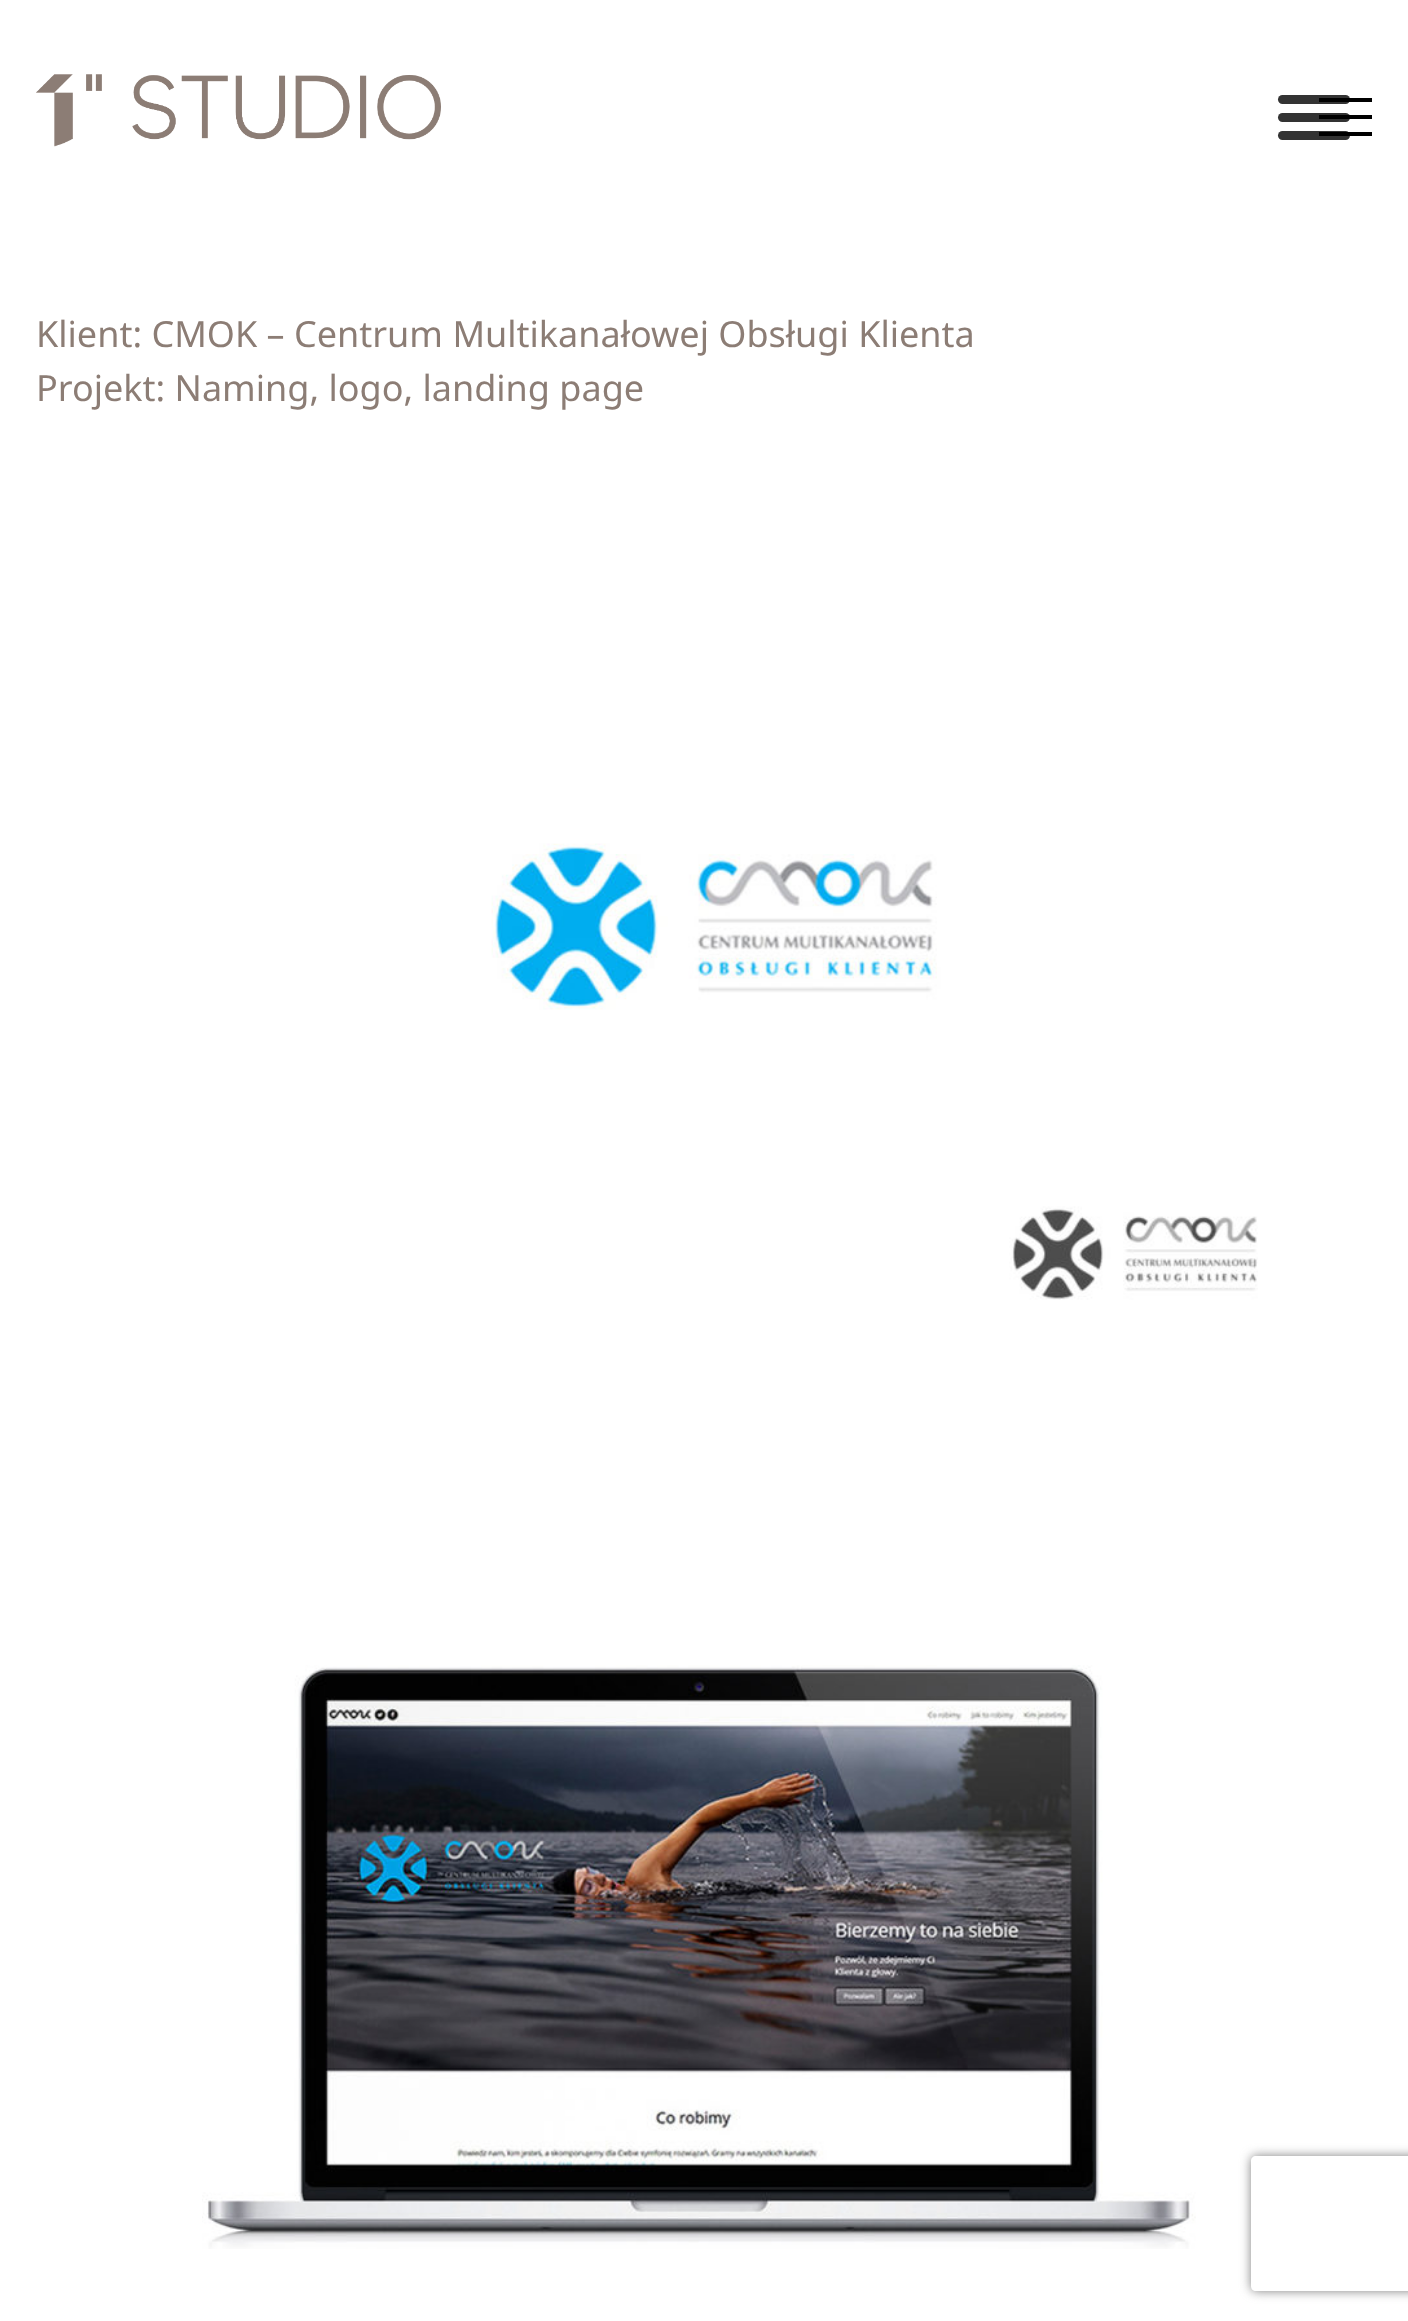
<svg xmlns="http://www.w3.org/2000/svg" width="1408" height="2321">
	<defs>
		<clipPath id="clip1"><rect x="1319" y="90" width="54" height="54" /></clipPath>
		<clipPath id="clip2"><path d="M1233 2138H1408V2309H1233ZM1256 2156H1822C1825 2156 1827 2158 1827 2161V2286C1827 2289 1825 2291 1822 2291H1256C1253 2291 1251 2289 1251 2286V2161C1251 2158 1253 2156 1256 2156Z" clip-rule="evenodd" /></clipPath>
	</defs>
	<rect width="100%" height="100%" fill="#FFFFFF" />
	<image x="36" y="74" width="405" height="73" href="assets/img1.png" />
	<rect x="1278" y="95" width="72" height="9" rx="4.5" fill="#333333" />
	<rect x="1278" y="113" width="72" height="9" rx="4.5" fill="#333333" />
	<rect x="1278" y="131" width="72" height="9" rx="4.5" fill="#333333" />
	<g clip-path="url(#clip1)">
		<path d="M1318 115H1372V119H1318ZM1318 132H1372V136H1318ZM1318 98H1372V102H1318Z" fill="#000000" />
	</g>
	<g font-family="Noto Sans" font-size="36" fill="#8C7D75">
		<text x="36" y="347">Klient: CMOK – Centrum Multikanałowej Obsługi Klienta</text>
		<text x="36" y="401">Projekt: Naming, logo, landing page</text>
	</g>
	<image x="491" y="843" width="767" height="457" href="assets/img2.png" />
	<image x="202" y="1665" width="994" height="584" href="assets/img3.png" />
	<g clip-path="url(#clip2)">
		<rect x="1251" y="2156" width="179" height="135" rx="5" fill="#808080" filter="blur(5.5px)" />
	</g>
</svg>
